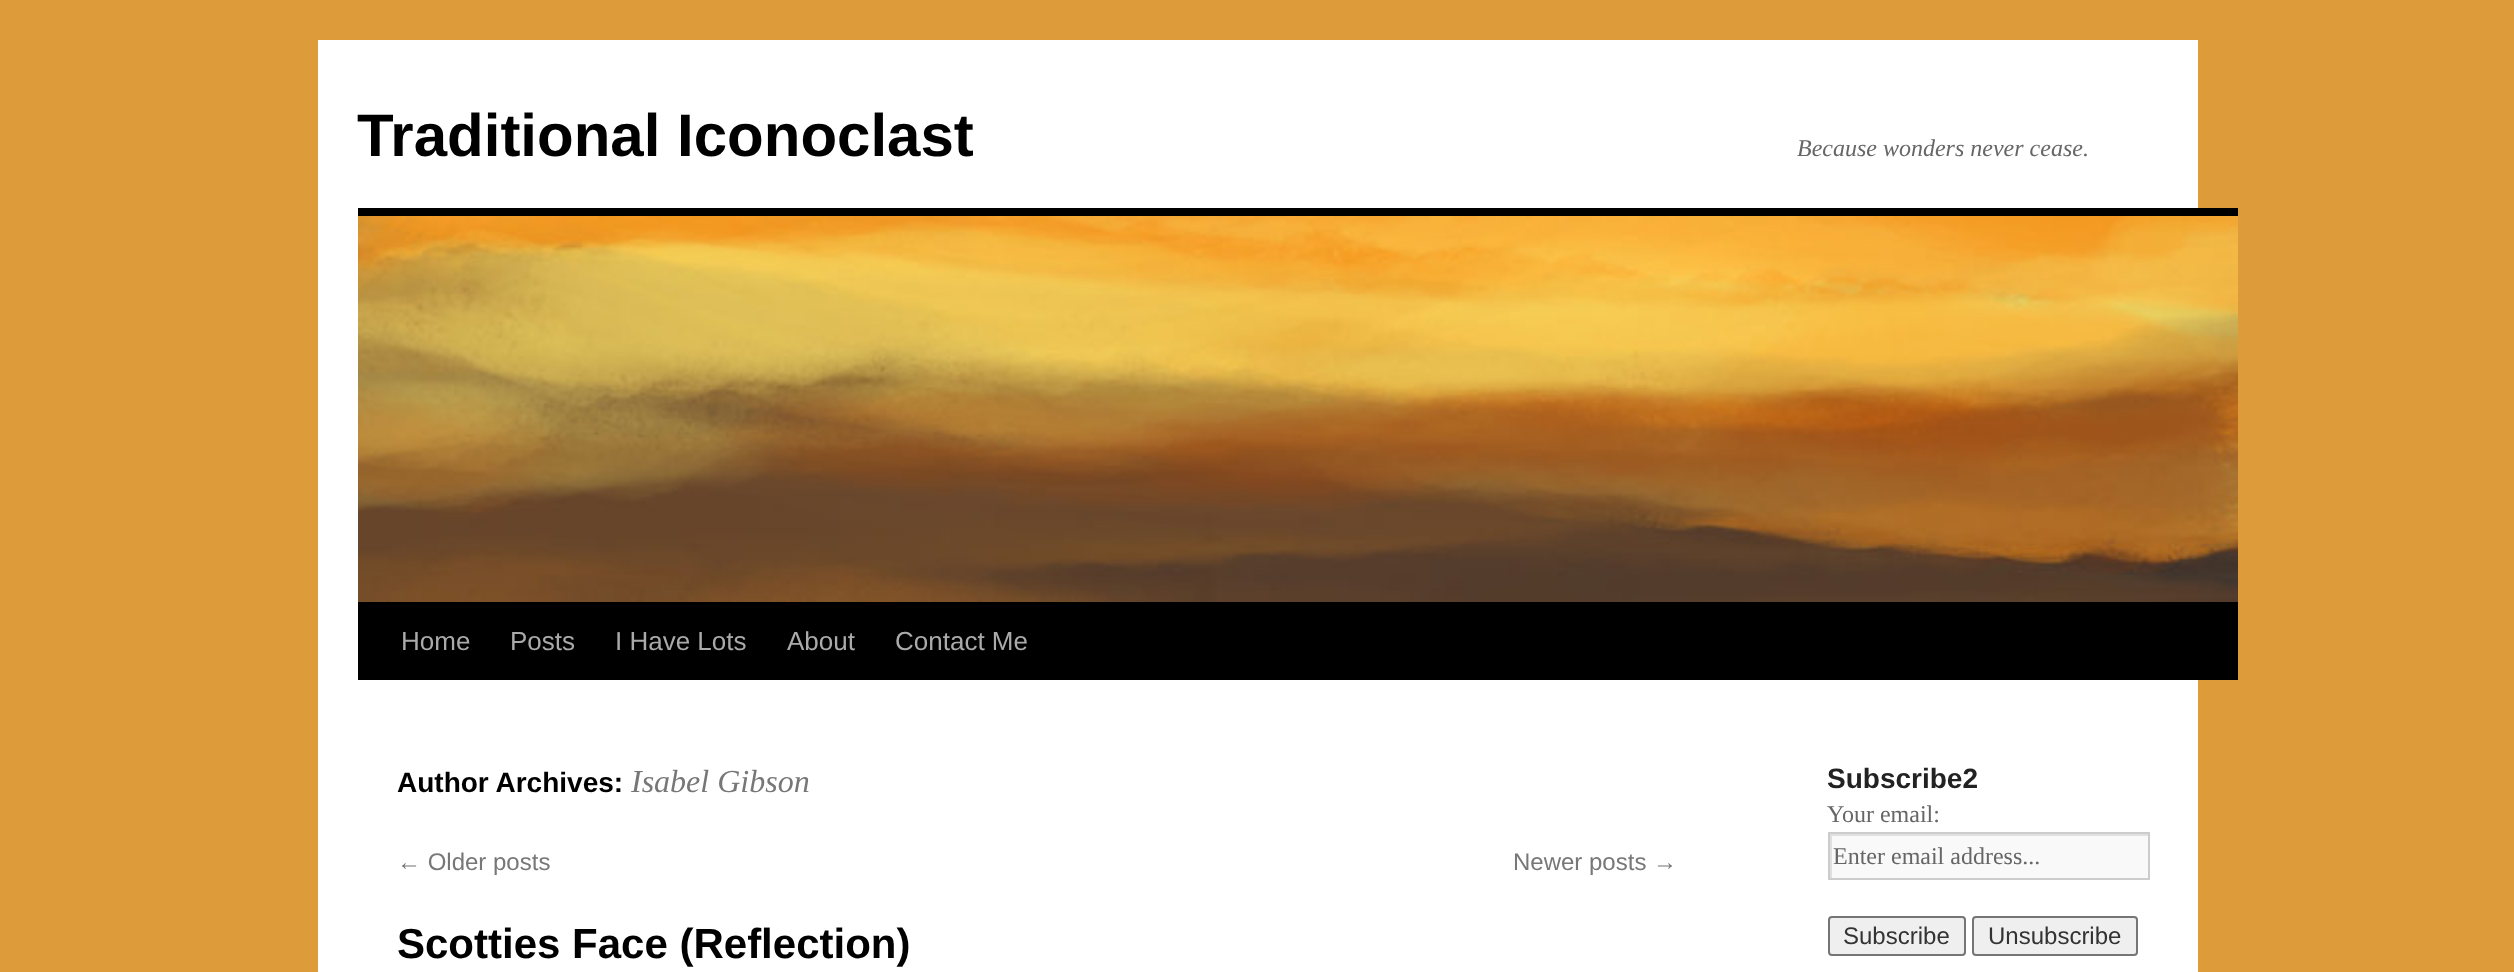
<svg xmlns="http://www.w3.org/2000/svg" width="2514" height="972">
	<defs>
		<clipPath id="clip1"><rect x="1830" y="834" width="318" height="44" /></clipPath>
	</defs>
	<rect width="100%" height="100%" fill="#DD9C39" />
	<rect x="318" y="40" width="1880" height="932" fill="#FFFFFF" />
	<text x="357" y="156" font-family="Liberation Sans" font-size="60" font-weight="700" fill="#000000">Traditional Iconoclast</text>
	<text x="1797" y="156" font-family="Liberation Serif" font-size="24" font-style="italic" fill="#666666">Because wonders never cease.</text>
	<rect x="358" y="208" width="1880" height="8" fill="#000000" />
	<rect x="358" y="602" width="1880" height="78" fill="#000000" />
	<image x="358" y="216" width="1880" height="386" href="assets/img1.png" />
	<g font-family="Liberation Sans" font-size="26" fill="#AAAAAA">
		<text x="401" y="650">Home</text>
		<text x="510" y="650">Posts</text>
		<text x="615" y="650">I Have Lots</text>
		<text x="787" y="650">About</text>
		<text x="895" y="650">Contact Me</text>
	</g>
	<text x="397" y="792" font-family="Liberation Sans" font-size="28" font-weight="700" fill="#000000">Author Archives:</text>
	<text x="631" y="792" font-family="Liberation Serif" font-size="32" font-style="italic" fill="#777777">Isabel Gibson</text>
	<g font-family="Liberation Sans" font-size="24" fill="#777777">
		<text x="397" y="870">← Older posts</text>
		<text x="1513" y="870">Newer posts →</text>
	</g>
	<text x="397" y="958" font-family="Liberation Sans" font-size="42" font-weight="700" fill="#000000">Scotties Face (Reflection)</text>
	<text x="1827" y="788" font-family="Liberation Sans" font-size="28" font-weight="700" fill="#222222">Subscribe2</text>
	<text x="1827" y="822" font-family="Liberation Serif" font-size="24" fill="#666666">Your email:</text>
	<rect x="1832" y="836" width="316" height="42" fill="#F9F9F9" />
	<g clip-path="url(#clip1)">
		<path d="M1632 636H2346V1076H1632ZM1832 836H2150V880H1832Z" fill="#E0E0E0" fill-rule="evenodd" />
	</g>
	<rect x="1829" y="833" width="320" height="46" fill="none" stroke="#CCCCCC" stroke-width="2" />
	<text x="1833" y="864" font-family="Liberation Serif" font-size="24" fill="#666666">Enter email address...</text>
	<rect x="1829" y="917" width="136" height="38" rx="3" fill="#EFEFEF" stroke="#767676" stroke-width="2" />
	<text x="1843" y="944" font-family="Liberation Sans" font-size="24" fill="#333333">Subscribe</text>
	<rect x="1973" y="917" width="164" height="38" rx="3" fill="#EFEFEF" stroke="#767676" stroke-width="2" />
	<text x="1988" y="944" font-family="Liberation Sans" font-size="24" fill="#333333">Unsubscribe</text>
</svg>
